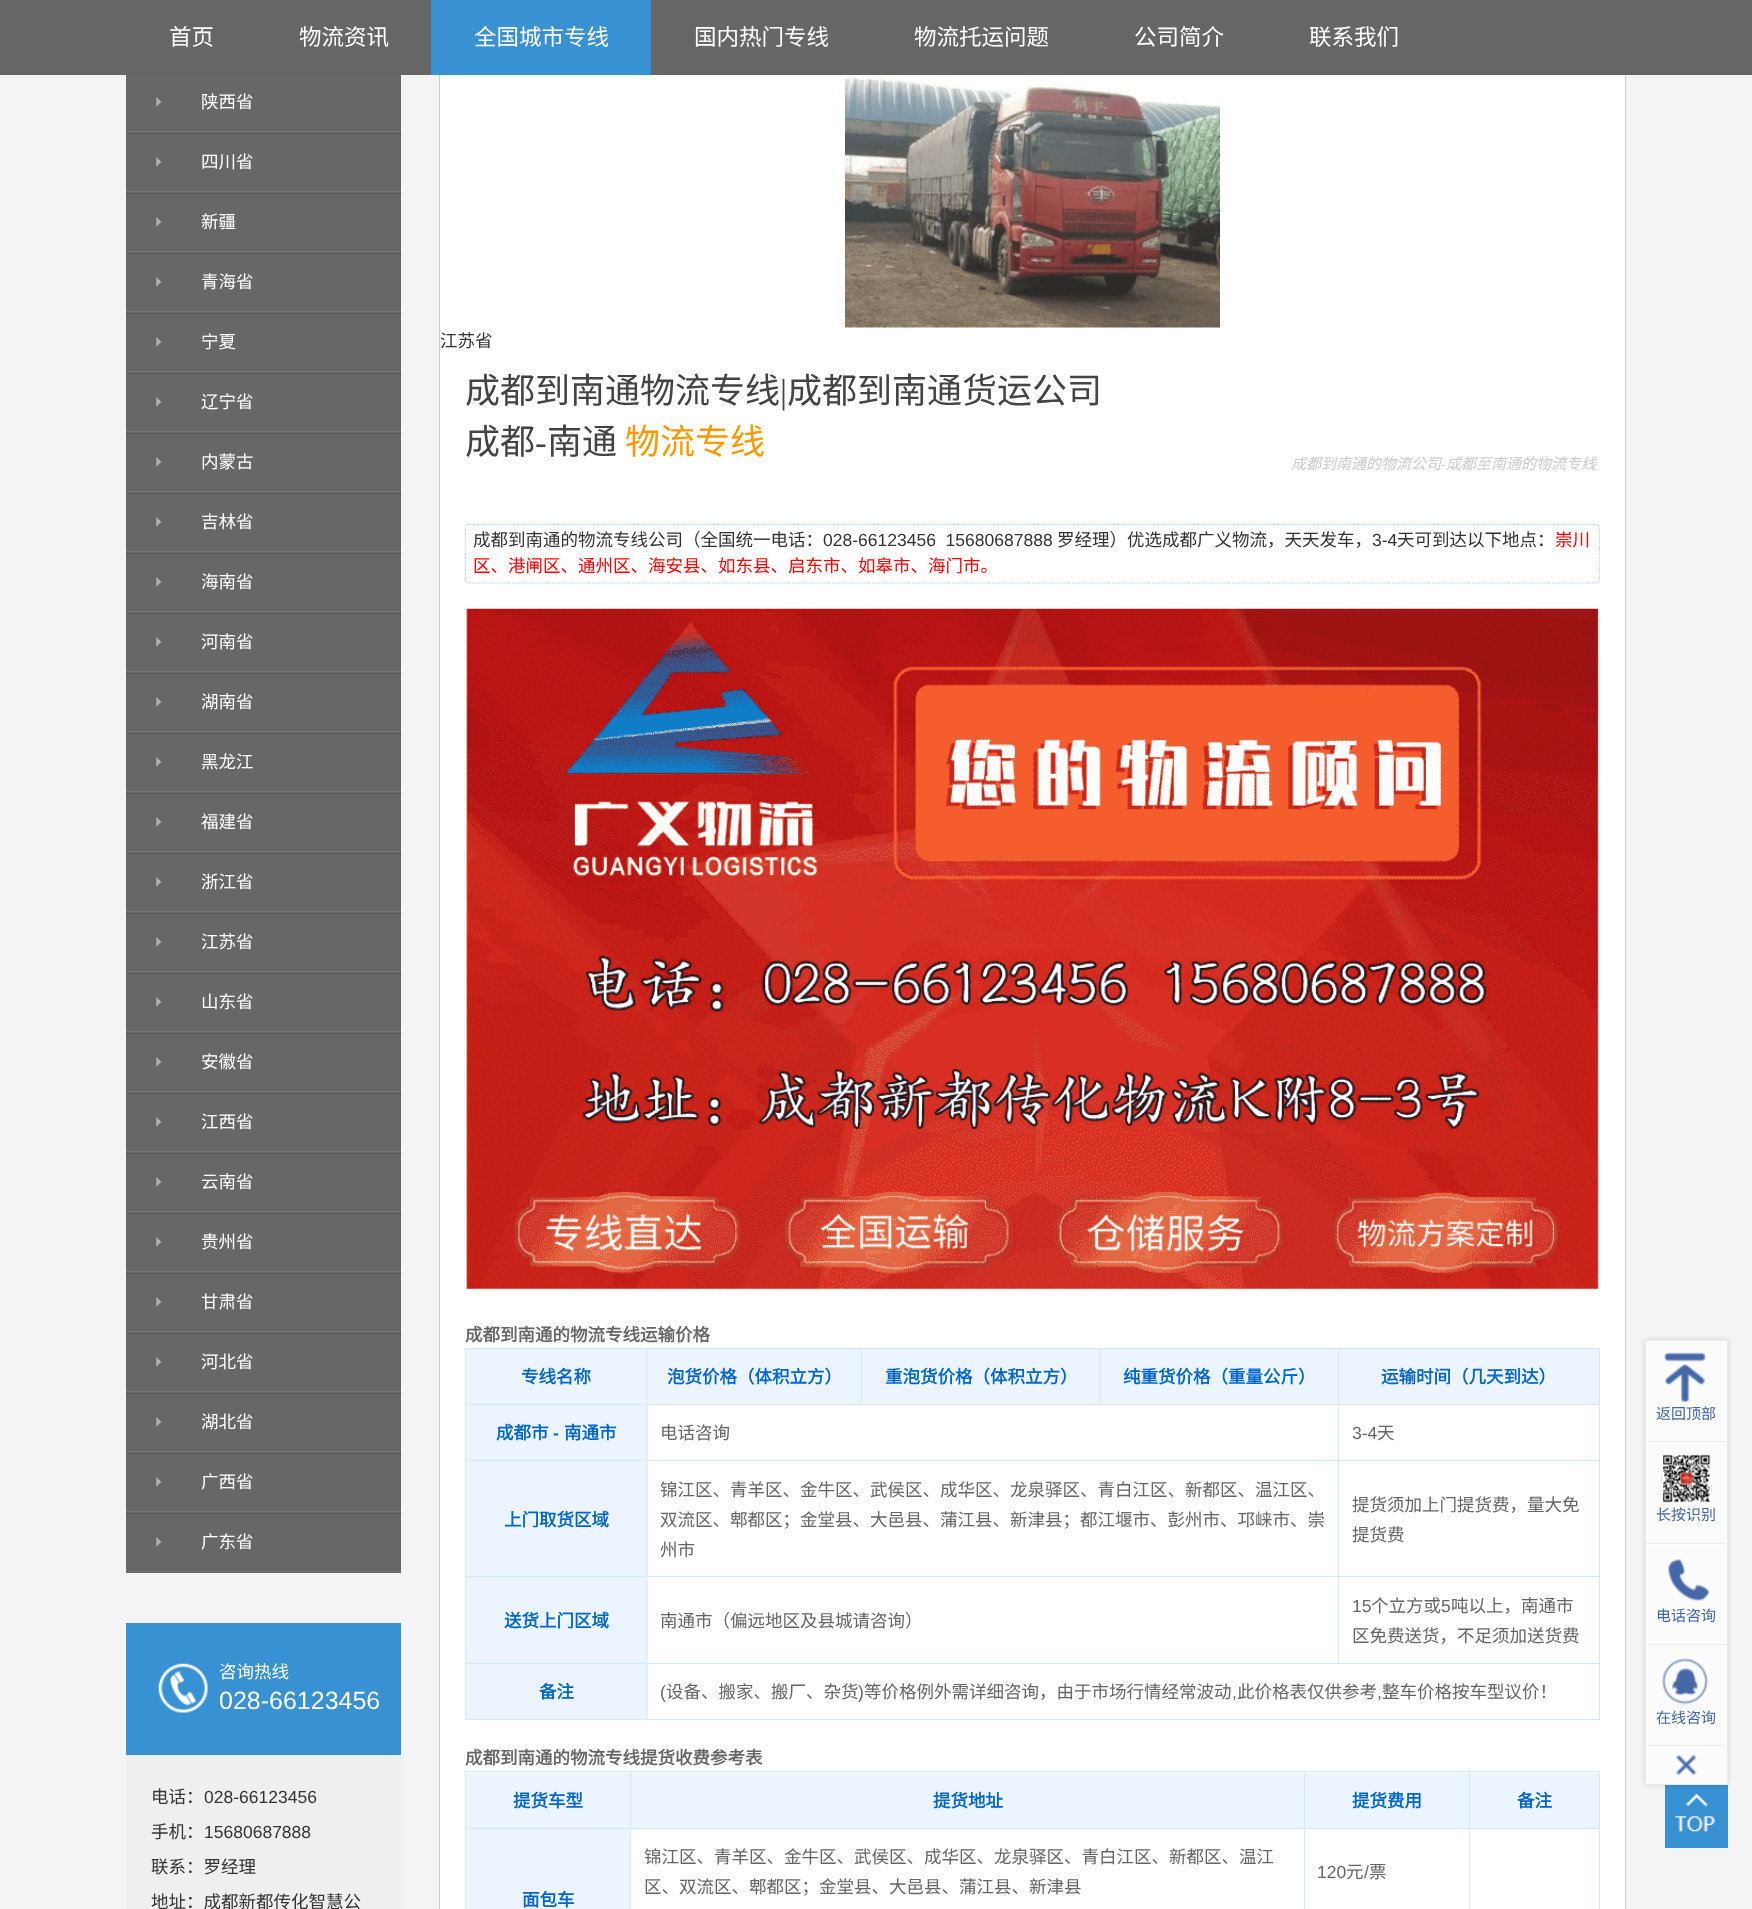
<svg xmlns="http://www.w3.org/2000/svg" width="1752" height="1909">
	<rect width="100%" height="100%" fill="#F4F4F4" />
	<rect x="440" y="75" width="1185" height="1834" fill="#FFFFFF" />
	<rect x="439.5" y="-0.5" width="1186" height="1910" fill="none" stroke="#CCCCCC" />
	<rect x="0" y="0" width="1752" height="75" fill="#666666" />
	<g font-family="Noto Sans CJK SC" font-size="22.5" fill="#FFFFFF">
		<text x="169" y="45">首页</text>
		<text x="299" y="45">物流资讯</text>
	</g>
	<rect x="431" y="0" width="220" height="75" fill="#3891D2" />
	<g font-family="Noto Sans CJK SC" font-size="22.5" fill="#FFFFFF">
		<text x="474" y="45">全国城市专线</text>
		<text x="694" y="45">国内热门专线</text>
		<text x="914" y="45">物流托运问题</text>
		<text x="1134" y="45">公司简介</text>
		<text x="1309" y="45">联系我们</text>
	</g>
	<rect x="126" y="75" width="275" height="58" fill="#676767" />
	<image x="156" y="97" width="6" height="10" href="assets/img1.png" />
	<rect x="126" y="131" width="275" height="1" fill="#757575" />
	<text x="201" y="108" font-family="Noto Sans CJK SC" font-size="17.5" fill="#FFFFFF">陕西省</text>
	<rect x="126" y="134" width="275" height="59" fill="#676767" />
	<image x="156" y="157" width="6" height="10" href="assets/img1.png" />
	<rect x="126" y="133" width="275" height="1" fill="#565656" />
	<rect x="126" y="191" width="275" height="1" fill="#757575" />
	<text x="201" y="168" font-family="Noto Sans CJK SC" font-size="17.5" fill="#FFFFFF">四川省</text>
	<rect x="126" y="194" width="275" height="59" fill="#676767" />
	<image x="156" y="217" width="6" height="10" href="assets/img1.png" />
	<rect x="126" y="193" width="275" height="1" fill="#565656" />
	<rect x="126" y="251" width="275" height="1" fill="#757575" />
	<text x="201" y="228" font-family="Noto Sans CJK SC" font-size="17.5" fill="#FFFFFF">新疆</text>
	<rect x="126" y="254" width="275" height="59" fill="#676767" />
	<image x="156" y="277" width="6" height="10" href="assets/img1.png" />
	<rect x="126" y="253" width="275" height="1" fill="#565656" />
	<rect x="126" y="311" width="275" height="1" fill="#757575" />
	<text x="201" y="288" font-family="Noto Sans CJK SC" font-size="17.5" fill="#FFFFFF">青海省</text>
	<rect x="126" y="314" width="275" height="59" fill="#676767" />
	<image x="156" y="337" width="6" height="10" href="assets/img1.png" />
	<rect x="126" y="313" width="275" height="1" fill="#565656" />
	<rect x="126" y="371" width="275" height="1" fill="#757575" />
	<text x="201" y="348" font-family="Noto Sans CJK SC" font-size="17.5" fill="#FFFFFF">宁夏</text>
	<rect x="126" y="374" width="275" height="59" fill="#676767" />
	<image x="156" y="397" width="6" height="10" href="assets/img1.png" />
	<rect x="126" y="373" width="275" height="1" fill="#565656" />
	<rect x="126" y="431" width="275" height="1" fill="#757575" />
	<text x="201" y="408" font-family="Noto Sans CJK SC" font-size="17.5" fill="#FFFFFF">辽宁省</text>
	<rect x="126" y="434" width="275" height="59" fill="#676767" />
	<image x="156" y="457" width="6" height="10" href="assets/img1.png" />
	<rect x="126" y="433" width="275" height="1" fill="#565656" />
	<rect x="126" y="491" width="275" height="1" fill="#757575" />
	<text x="201" y="468" font-family="Noto Sans CJK SC" font-size="17.5" fill="#FFFFFF">内蒙古</text>
	<rect x="126" y="494" width="275" height="59" fill="#676767" />
	<image x="156" y="517" width="6" height="10" href="assets/img1.png" />
	<rect x="126" y="493" width="275" height="1" fill="#565656" />
	<rect x="126" y="551" width="275" height="1" fill="#757575" />
	<text x="201" y="528" font-family="Noto Sans CJK SC" font-size="17.5" fill="#FFFFFF">吉林省</text>
	<rect x="126" y="554" width="275" height="59" fill="#676767" />
	<image x="156" y="577" width="6" height="10" href="assets/img1.png" />
	<rect x="126" y="553" width="275" height="1" fill="#565656" />
	<rect x="126" y="611" width="275" height="1" fill="#757575" />
	<text x="201" y="588" font-family="Noto Sans CJK SC" font-size="17.5" fill="#FFFFFF">海南省</text>
	<rect x="126" y="614" width="275" height="59" fill="#676767" />
	<image x="156" y="637" width="6" height="10" href="assets/img1.png" />
	<rect x="126" y="613" width="275" height="1" fill="#565656" />
	<rect x="126" y="671" width="275" height="1" fill="#757575" />
	<text x="201" y="648" font-family="Noto Sans CJK SC" font-size="17.5" fill="#FFFFFF">河南省</text>
	<rect x="126" y="674" width="275" height="59" fill="#676767" />
	<image x="156" y="697" width="6" height="10" href="assets/img1.png" />
	<rect x="126" y="673" width="275" height="1" fill="#565656" />
	<rect x="126" y="731" width="275" height="1" fill="#757575" />
	<text x="201" y="708" font-family="Noto Sans CJK SC" font-size="17.5" fill="#FFFFFF">湖南省</text>
	<rect x="126" y="734" width="275" height="59" fill="#676767" />
	<image x="156" y="757" width="6" height="10" href="assets/img1.png" />
	<rect x="126" y="733" width="275" height="1" fill="#565656" />
	<rect x="126" y="791" width="275" height="1" fill="#757575" />
	<text x="201" y="768" font-family="Noto Sans CJK SC" font-size="17.5" fill="#FFFFFF">黑龙江</text>
	<rect x="126" y="794" width="275" height="59" fill="#676767" />
	<image x="156" y="817" width="6" height="10" href="assets/img1.png" />
	<rect x="126" y="793" width="275" height="1" fill="#565656" />
	<rect x="126" y="851" width="275" height="1" fill="#757575" />
	<text x="201" y="828" font-family="Noto Sans CJK SC" font-size="17.5" fill="#FFFFFF">福建省</text>
	<rect x="126" y="854" width="275" height="59" fill="#676767" />
	<image x="156" y="877" width="6" height="10" href="assets/img1.png" />
	<rect x="126" y="853" width="275" height="1" fill="#565656" />
	<rect x="126" y="911" width="275" height="1" fill="#757575" />
	<text x="201" y="888" font-family="Noto Sans CJK SC" font-size="17.5" fill="#FFFFFF">浙江省</text>
	<rect x="126" y="914" width="275" height="59" fill="#676767" />
	<image x="156" y="937" width="6" height="10" href="assets/img1.png" />
	<rect x="126" y="913" width="275" height="1" fill="#565656" />
	<rect x="126" y="971" width="275" height="1" fill="#757575" />
	<text x="201" y="948" font-family="Noto Sans CJK SC" font-size="17.5" fill="#FFFFFF">江苏省</text>
	<rect x="126" y="974" width="275" height="59" fill="#676767" />
	<image x="156" y="997" width="6" height="10" href="assets/img1.png" />
	<rect x="126" y="973" width="275" height="1" fill="#565656" />
	<rect x="126" y="1031" width="275" height="1" fill="#757575" />
	<text x="201" y="1008" font-family="Noto Sans CJK SC" font-size="17.5" fill="#FFFFFF">山东省</text>
	<rect x="126" y="1034" width="275" height="59" fill="#676767" />
	<image x="156" y="1057" width="6" height="10" href="assets/img1.png" />
	<rect x="126" y="1033" width="275" height="1" fill="#565656" />
	<rect x="126" y="1091" width="275" height="1" fill="#757575" />
	<text x="201" y="1068" font-family="Noto Sans CJK SC" font-size="17.5" fill="#FFFFFF">安徽省</text>
	<rect x="126" y="1094" width="275" height="59" fill="#676767" />
	<image x="156" y="1117" width="6" height="10" href="assets/img1.png" />
	<rect x="126" y="1093" width="275" height="1" fill="#565656" />
	<rect x="126" y="1151" width="275" height="1" fill="#757575" />
	<text x="201" y="1128" font-family="Noto Sans CJK SC" font-size="17.5" fill="#FFFFFF">江西省</text>
	<rect x="126" y="1154" width="275" height="59" fill="#676767" />
	<image x="156" y="1177" width="6" height="10" href="assets/img1.png" />
	<rect x="126" y="1153" width="275" height="1" fill="#565656" />
	<rect x="126" y="1211" width="275" height="1" fill="#757575" />
	<text x="201" y="1188" font-family="Noto Sans CJK SC" font-size="17.5" fill="#FFFFFF">云南省</text>
	<rect x="126" y="1214" width="275" height="59" fill="#676767" />
	<image x="156" y="1237" width="6" height="10" href="assets/img1.png" />
	<rect x="126" y="1213" width="275" height="1" fill="#565656" />
	<rect x="126" y="1271" width="275" height="1" fill="#757575" />
	<text x="201" y="1248" font-family="Noto Sans CJK SC" font-size="17.5" fill="#FFFFFF">贵州省</text>
	<rect x="126" y="1274" width="275" height="59" fill="#676767" />
	<image x="156" y="1297" width="6" height="10" href="assets/img1.png" />
	<rect x="126" y="1273" width="275" height="1" fill="#565656" />
	<rect x="126" y="1331" width="275" height="1" fill="#757575" />
	<text x="201" y="1308" font-family="Noto Sans CJK SC" font-size="17.5" fill="#FFFFFF">甘肃省</text>
	<rect x="126" y="1334" width="275" height="59" fill="#676767" />
	<image x="156" y="1357" width="6" height="10" href="assets/img1.png" />
	<rect x="126" y="1333" width="275" height="1" fill="#565656" />
	<rect x="126" y="1391" width="275" height="1" fill="#757575" />
	<text x="201" y="1368" font-family="Noto Sans CJK SC" font-size="17.5" fill="#FFFFFF">河北省</text>
	<rect x="126" y="1394" width="275" height="59" fill="#676767" />
	<image x="156" y="1417" width="6" height="10" href="assets/img1.png" />
	<rect x="126" y="1393" width="275" height="1" fill="#565656" />
	<rect x="126" y="1451" width="275" height="1" fill="#757575" />
	<text x="201" y="1428" font-family="Noto Sans CJK SC" font-size="17.5" fill="#FFFFFF">湖北省</text>
	<rect x="126" y="1454" width="275" height="59" fill="#676767" />
	<image x="156" y="1477" width="6" height="10" href="assets/img1.png" />
	<rect x="126" y="1453" width="275" height="1" fill="#565656" />
	<rect x="126" y="1511" width="275" height="1" fill="#757575" />
	<text x="201" y="1488" font-family="Noto Sans CJK SC" font-size="17.5" fill="#FFFFFF">广西省</text>
	<rect x="126" y="1514" width="275" height="59" fill="#676767" />
	<image x="156" y="1537" width="6" height="10" href="assets/img1.png" />
	<rect x="126" y="1513" width="275" height="1" fill="#565656" />
	<rect x="126" y="1571" width="275" height="1" fill="#757575" />
	<text x="201" y="1548" font-family="Noto Sans CJK SC" font-size="17.5" fill="#FFFFFF">广东省</text>
	<rect x="126" y="1623" width="275" height="132" fill="#3891D2" />
	<image x="158" y="1663" width="50" height="50" href="assets/img2.png" />
	<text x="219" y="1678" font-family="Noto Sans CJK SC" font-size="17.5" fill="#FFFFFF">咨询热线</text>
	<text x="219" y="1709" font-family="Liberation Sans" font-size="25" fill="#FFFFFF">028-66123456</text>
	<rect x="126" y="1755" width="275" height="154" fill="#EFEFEF" />
	<text x="151" y="1803" font-family="Noto Sans CJK SC" font-size="17.5" fill="#333333">电话：</text>
	<text x="204" y="1803" font-family="Liberation Sans" font-size="17.5" fill="#333333">028-66123456</text>
	<text x="151" y="1838" font-family="Noto Sans CJK SC" font-size="17.5" fill="#333333">手机：</text>
	<text x="204" y="1838" font-family="Liberation Sans" font-size="17.5" fill="#333333">15680687888</text>
	<g font-family="Noto Sans CJK SC" font-size="17.5" fill="#333333">
		<text x="151" y="1873">联系：罗经理</text>
		<text x="151" y="1908">地址：成都新都传化智慧公</text>
	</g>
	<image x="845" y="77" width="375" height="251" href="assets/img3.png" />
	<text x="440" y="347" font-family="Noto Sans CJK SC" font-size="17.5" fill="#333333">江苏省</text>
	<text x="465" y="403" font-family="Noto Sans CJK SC" font-size="35" fill="#444444">成都到南通物流专线</text>
	<text x="780" y="403" font-family="Liberation Serif" font-size="35" fill="#444444">|</text>
	<g font-family="Noto Sans CJK SC" font-size="35" fill="#444444">
		<text x="787" y="403">成都到南通货运公司</text>
		<text x="465" y="454">成都</text>
	</g>
	<text x="535" y="454" font-family="Liberation Serif" font-size="35" fill="#444444">-</text>
	<text x="547" y="454" font-family="Noto Sans CJK SC" font-size="35" fill="#444444">南通</text>
	<text x="625" y="454" font-family="Noto Sans CJK SC" font-size="35" fill="#FF9900">物流专线</text>
	<text x="1291" y="469" font-family="Noto Sans CJK SC" font-size="15" font-style="italic" fill="#CCCCCC">成都到南通的物流公司</text>
	<text x="1441" y="469" font-family="Liberation Serif" font-size="15" font-style="italic" fill="#CCCCCC">-</text>
	<text x="1446" y="469" font-family="Noto Sans CJK SC" font-size="15" font-style="italic" fill="#CCCCCC">成都至南通的物流专线</text>
	<path d="M469 524.5H1596C1598 524.5 1599.5 526 1599.5 527.5V580C1599.5 581.5 1598 583 1596 583H469C467 583 465.5 581.5 465.5 580V527.5C465.5 526 467 524.5 469 524.5Z" fill="none" stroke="#ACD6FF" stroke-width="1.2" stroke-dasharray="1.25 1.25" />
	<text x="473" y="546" font-family="Noto Sans CJK SC" font-size="17.5" fill="#333333">成都到南通的物流专线公司（全国统一电话：</text>
	<text x="823" y="546" font-family="Liberation Sans" font-size="17.5" fill="#333333" xml:space="preserve">028-66123456  15680687888</text>
	<text x="1057" y="546" font-family="Noto Sans CJK SC" font-size="17.5" fill="#333333">罗经理）优选成都广义物流，天天发车，</text>
	<text x="1372" y="546" font-family="Liberation Sans" font-size="17.5" fill="#333333">3-4</text>
	<text x="1397" y="546" font-family="Noto Sans CJK SC" font-size="17.5" fill="#333333">天可到达以下地点：</text>
	<g font-family="Noto Sans CJK SC" font-size="17.5" fill="#FF0000">
		<text x="1555" y="546">崇川</text>
		<text x="473" y="572">区、港闸区、通州区、海安县、如东县、启东市、如皋市、海门市。</text>
	</g>
	<image x="465" y="608" width="1135" height="681" href="assets/img4.png" />
	<text x="465" y="1341" font-family="Noto Sans CJK SC" font-size="17.5" font-weight="700" fill="#666666">成都到南通的物流专线运输价格</text>
	<rect x="466" y="1349" width="1133" height="55" fill="#ECF5FF" />
	<rect x="1338" y="1348" width="262" height="1" fill="#D2E9FF" />
	<rect x="1338" y="1404" width="262" height="1" fill="#D2E9FF" />
	<rect x="1338" y="1460" width="262" height="1" fill="#D2E9FF" />
	<rect x="466" y="1461" width="182" height="202" fill="#ECF5FF" />
	<rect x="1338" y="1576" width="262" height="1" fill="#D2E9FF" />
	<rect x="646" y="1663" width="954" height="1" fill="#D2E9FF" />
	<rect x="1338" y="1576" width="1" height="88" fill="#D2E9FF" />
	<rect x="646" y="1576" width="693" height="1" fill="#D2E9FF" />
	<rect x="1338" y="1460" width="1" height="118" fill="#D2E9FF" />
	<rect x="646" y="1460" width="693" height="1" fill="#D2E9FF" />
	<rect x="1338" y="1404" width="1" height="57" fill="#D2E9FF" />
	<rect x="646" y="1404" width="693" height="1" fill="#D2E9FF" />
	<rect x="1338" y="1348" width="1" height="57" fill="#D2E9FF" />
	<rect x="1100" y="1348" width="239" height="1" fill="#D2E9FF" />
	<rect x="1100" y="1348" width="1" height="57" fill="#D2E9FF" />
	<rect x="861" y="1348" width="240" height="1" fill="#D2E9FF" />
	<rect x="861" y="1348" width="1" height="57" fill="#D2E9FF" />
	<rect x="646" y="1348" width="217" height="1" fill="#D2E9FF" />
	<rect x="466" y="1405" width="182" height="55" fill="#ECF5FF" />
	<rect x="466" y="1664" width="182" height="55" fill="#ECF5FF" />
	<rect x="1599" y="1663" width="1" height="57" fill="#D2E9FF" />
	<rect x="646" y="1719" width="954" height="1" fill="#D2E9FF" />
	<rect x="646" y="1663" width="1" height="57" fill="#D2E9FF" />
	<rect x="465" y="1663" width="183" height="1" fill="#D2E9FF" />
	<rect x="646" y="1576" width="1" height="88" fill="#D2E9FF" />
	<rect x="465" y="1576" width="183" height="1" fill="#D2E9FF" />
	<rect x="646" y="1460" width="1" height="118" fill="#D2E9FF" />
	<rect x="465" y="1460" width="183" height="1" fill="#D2E9FF" />
	<rect x="646" y="1404" width="1" height="57" fill="#D2E9FF" />
	<rect x="465" y="1404" width="183" height="1" fill="#D2E9FF" />
	<rect x="646" y="1348" width="1" height="57" fill="#D2E9FF" />
	<rect x="465" y="1348" width="183" height="1" fill="#D2E9FF" />
	<rect x="465" y="1719" width="183" height="1" fill="#D2E9FF" />
	<rect x="465" y="1663" width="1" height="57" fill="#D2E9FF" />
	<rect x="465" y="1576" width="1" height="88" fill="#D2E9FF" />
	<rect x="465" y="1460" width="1" height="118" fill="#D2E9FF" />
	<rect x="465" y="1404" width="1" height="57" fill="#D2E9FF" />
	<rect x="465" y="1348" width="1" height="57" fill="#D2E9FF" />
	<g font-family="Noto Sans CJK SC" font-size="17.5" font-weight="700" fill="#0066CC">
		<text x="521" y="1383">专线名称</text>
		<text x="667" y="1383">泡货价格（体积立方）</text>
		<text x="885" y="1383">重泡货价格（体积立方）</text>
		<text x="1123" y="1383">纯重货价格（重量公斤）</text>
	</g>
	<rect x="1599" y="1576" width="1" height="88" fill="#D2E9FF" />
	<rect x="1599" y="1460" width="1" height="118" fill="#D2E9FF" />
	<rect x="1599" y="1404" width="1" height="57" fill="#D2E9FF" />
	<rect x="1599" y="1348" width="1" height="57" fill="#D2E9FF" />
	<g font-family="Noto Sans CJK SC" font-size="17.5" font-weight="700" fill="#0066CC">
		<text x="1381" y="1383">运输时间（几天到达）</text>
		<text x="496" y="1439">成都市</text>
	</g>
	<text x="553" y="1439" font-family="Liberation Sans" font-size="17.5" font-weight="700" fill="#0066CC">-</text>
	<text x="564" y="1439" font-family="Noto Sans CJK SC" font-size="17.5" font-weight="700" fill="#0066CC">南通市</text>
	<text x="660" y="1439" font-family="Noto Sans CJK SC" font-size="17.5" fill="#666666">电话咨询</text>
	<text x="1352" y="1439" font-family="Liberation Sans" font-size="17.5" fill="#666666">3-4</text>
	<text x="1377" y="1439" font-family="Noto Sans CJK SC" font-size="17.5" fill="#666666">天</text>
	<text x="504" y="1526" font-family="Noto Sans CJK SC" font-size="17.5" font-weight="700" fill="#0066CC">上门取货区域</text>
	<g font-family="Noto Sans CJK SC" font-size="17.5" fill="#666666">
		<text x="660" y="1496">锦江区、青羊区、金牛区、武侯区、成华区、龙泉驿区、青白江区、新都区、温江区、</text>
		<text x="660" y="1526">双流区、郫都区；金堂县、大邑县、蒲江县、新津县；都江堰市、彭州市、邛崃市、崇</text>
		<text x="660" y="1556">州市</text>
		<text x="1352" y="1511">提货须加上门提货费，量大免</text>
		<text x="1352" y="1541">提货费</text>
	</g>
	<text x="504" y="1627" font-family="Noto Sans CJK SC" font-size="17.5" font-weight="700" fill="#0066CC">送货上门区域</text>
	<text x="660" y="1627" font-family="Noto Sans CJK SC" font-size="17.5" fill="#666666">南通市（偏远地区及县城请咨询）</text>
	<text x="1352" y="1612" font-family="Liberation Sans" font-size="17.5" fill="#666666">15</text>
	<text x="1371" y="1612" font-family="Noto Sans CJK SC" font-size="17.5" fill="#666666">个立方或</text>
	<text x="1441" y="1612" font-family="Liberation Sans" font-size="17.5" fill="#666666">5</text>
	<g font-family="Noto Sans CJK SC" font-size="17.5" fill="#666666">
		<text x="1451" y="1612">吨以上，南通市</text>
		<text x="1352" y="1642">区免费送货，不足须加送货费</text>
	</g>
	<text x="539" y="1698" font-family="Noto Sans CJK SC" font-size="17.5" font-weight="700" fill="#0066CC">备注</text>
	<text x="660" y="1698" font-family="Liberation Sans" font-size="17.5" fill="#666666">(</text>
	<text x="666" y="1698" font-family="Noto Sans CJK SC" font-size="17.5" fill="#666666">设备、搬家、搬厂、杂货</text>
	<text x="858" y="1698" font-family="Liberation Sans" font-size="17.5" fill="#666666">)</text>
	<text x="864" y="1698" font-family="Noto Sans CJK SC" font-size="17.5" fill="#666666">等价格例外需详细咨询，由于市场行情经常波动</text>
	<text x="1232" y="1698" font-family="Liberation Sans" font-size="17.5" fill="#666666">,</text>
	<text x="1237" y="1698" font-family="Noto Sans CJK SC" font-size="17.5" fill="#666666">此价格表仅供参考</text>
	<text x="1377" y="1698" font-family="Liberation Sans" font-size="17.5" fill="#666666">,</text>
	<text x="1382" y="1698" font-family="Noto Sans CJK SC" font-size="17.5" fill="#666666">整车价格按车型议价！</text>
	<text x="465" y="1764" font-family="Noto Sans CJK SC" font-size="17.5" font-weight="700" fill="#666666">成都到南通的物流专线提货收费参考表</text>
	<rect x="466" y="1773" width="1133" height="55" fill="#ECF5FF" />
	<rect x="1469" y="1771" width="131" height="1" fill="#D2E9FF" />
	<rect x="1469" y="1828" width="131" height="1" fill="#D2E9FF" />
	<rect x="1469" y="1828" width="1" height="81" fill="#D2E9FF" />
	<rect x="1304" y="1828" width="166" height="1" fill="#D2E9FF" />
	<rect x="1469" y="1771" width="1" height="58" fill="#D2E9FF" />
	<rect x="1304" y="1771" width="166" height="1" fill="#D2E9FF" />
	<rect x="1304" y="1828" width="1" height="81" fill="#D2E9FF" />
	<rect x="630" y="1828" width="675" height="1" fill="#D2E9FF" />
	<rect x="1304" y="1771" width="1" height="58" fill="#D2E9FF" />
	<rect x="630" y="1771" width="675" height="1" fill="#D2E9FF" />
	<rect x="630" y="1828" width="1" height="81" fill="#D2E9FF" />
	<rect x="465" y="1828" width="166" height="1" fill="#D2E9FF" />
	<rect x="630" y="1771" width="1" height="58" fill="#D2E9FF" />
	<rect x="465" y="1771" width="166" height="1" fill="#D2E9FF" />
	<rect x="465" y="1828" width="1" height="81" fill="#D2E9FF" />
	<rect x="465" y="1771" width="1" height="58" fill="#D2E9FF" />
	<g font-family="Noto Sans CJK SC" font-size="17.5" font-weight="700" fill="#0066CC">
		<text x="513" y="1807">提货车型</text>
		<text x="933" y="1807">提货地址</text>
		<text x="1352" y="1807">提货费用</text>
	</g>
	<rect x="1599" y="1828" width="1" height="81" fill="#D2E9FF" />
	<rect x="1599" y="1771" width="1" height="58" fill="#D2E9FF" />
	<text x="1517" y="1807" font-family="Noto Sans CJK SC" font-size="17.5" font-weight="700" fill="#0066CC">备注</text>
	<g font-family="Noto Sans CJK SC" font-size="17.5" fill="#666666">
		<text x="644" y="1863">锦江区、青羊区、金牛区、武侯区、成华区、龙泉驿区、青白江区、新都区、温江</text>
		<text x="644" y="1893">区、双流区、郫都区；金堂县、大邑县、蒲江县、新津县</text>
	</g>
	<text x="1317" y="1878" font-family="Liberation Sans" font-size="17.5" fill="#666666">120</text>
	<text x="1346" y="1878" font-family="Noto Sans CJK SC" font-size="17.5" fill="#666666">元</text>
	<text x="1364" y="1878" font-family="Liberation Sans" font-size="17.5" fill="#666666">/</text>
	<text x="1369" y="1878" font-family="Noto Sans CJK SC" font-size="17.5" fill="#666666">票</text>
	<rect x="466" y="1829" width="164" height="80" fill="#ECF5FF" />
	<text x="522" y="1906" font-family="Noto Sans CJK SC" font-size="17.5" font-weight="700" fill="#0066CC">面包车</text>
	<image x="1665" y="1785" width="63" height="63" href="assets/img5.png" />
	<rect x="1645" y="1340" width="83" height="445" fill="#000000" fill-opacity="0.14" filter="blur(2.5px)" />
	<rect x="1645.5" y="1340.5" width="82" height="444" fill="#FBFBFB" stroke="#EAEAEA" />
	<rect x="1646" y="1341" width="80" height="1" fill="#FFFFFF" />
	<rect x="1725" y="1341" width="1" height="102" fill="#FFFFFF" />
	<rect x="1646" y="1441" width="80" height="1" fill="#EDECEC" />
	<rect x="1646" y="1341" width="1" height="102" fill="#FFFFFF" />
	<image x="1664" y="1352" width="42" height="51" href="assets/img6.png" />
	<text x="1656" y="1419" font-family="Noto Sans CJK SC" font-size="15" fill="#4467A7">返回顶部</text>
	<rect x="1646" y="1443" width="80" height="1" fill="#FFFFFF" />
	<rect x="1725" y="1443" width="1" height="101" fill="#FFFFFF" />
	<rect x="1646" y="1543" width="80" height="1" fill="#EDECEC" />
	<rect x="1646" y="1443" width="1" height="101" fill="#FFFFFF" />
	<image x="1661" y="1472" width="51" height="32" href="assets/img7.png" />
	<image x="1661" y="1454" width="51" height="50" href="assets/img8.png" />
	<text x="1656" y="1520" font-family="Noto Sans CJK SC" font-size="15" fill="#4467A7">长按识别</text>
	<rect x="1646" y="1544" width="80" height="1" fill="#FFFFFF" />
	<rect x="1725" y="1544" width="1" height="101" fill="#FFFFFF" />
	<rect x="1646" y="1644" width="80" height="1" fill="#EDECEC" />
	<rect x="1646" y="1544" width="1" height="101" fill="#FFFFFF" />
	<image x="1668" y="1559" width="42" height="42" href="assets/img9.png" />
	<text x="1656" y="1621" font-family="Noto Sans CJK SC" font-size="15" fill="#4467A7">电话咨询</text>
	<rect x="1646" y="1645" width="80" height="1" fill="#FFFFFF" />
	<rect x="1725" y="1645" width="1" height="101" fill="#FFFFFF" />
	<rect x="1646" y="1745" width="80" height="1" fill="#EDECEC" />
	<rect x="1646" y="1645" width="1" height="101" fill="#FFFFFF" />
	<image x="1662" y="1658" width="47" height="47" href="assets/img10.png" />
	<text x="1656" y="1723" font-family="Noto Sans CJK SC" font-size="15" fill="#4467A7">在线咨询</text>
	<image x="1675" y="1754" width="22" height="22" href="assets/img11.png" />
</svg>
